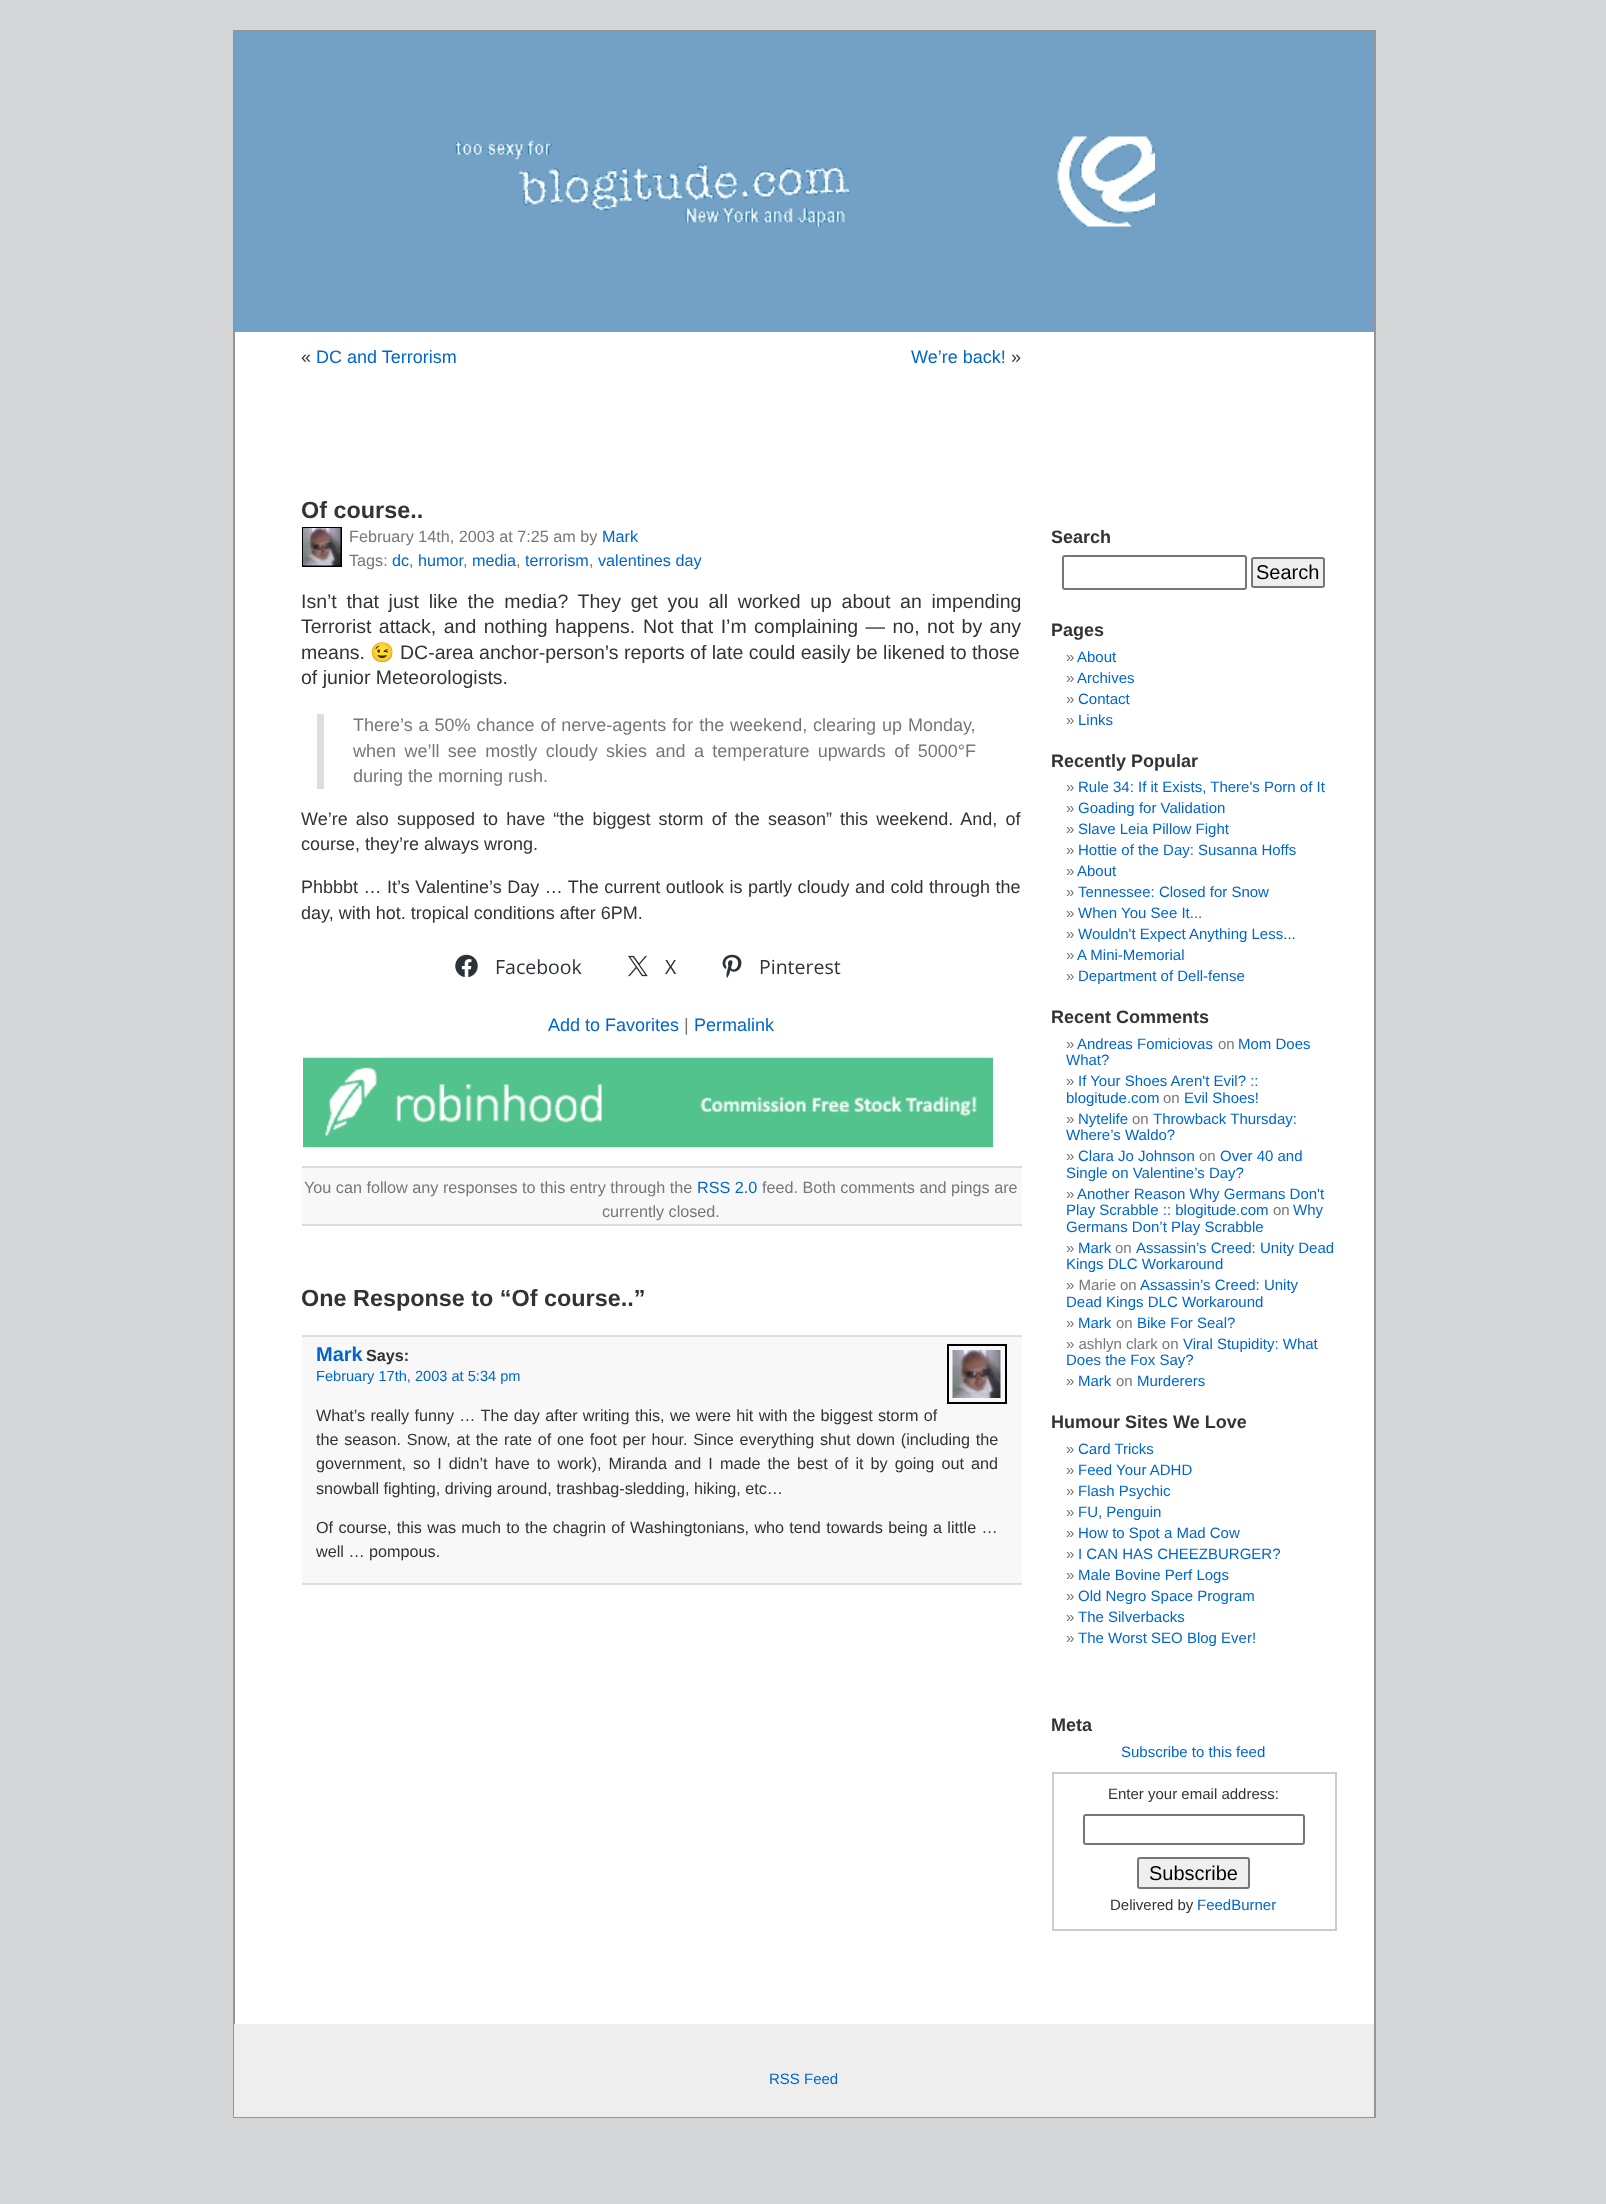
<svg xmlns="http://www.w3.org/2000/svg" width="1606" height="2204">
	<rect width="100%" height="100%" fill="#D5D6D7" />
	<rect x="235" y="332" width="1139" height="1692" fill="#FFFFFF" />
	<rect x="234" y="31" width="1141" height="2086" fill="none" stroke="#959596" stroke-width="2" />
	<rect x="234" y="32" width="1140" height="300" fill="#73A0C5" />
	<image x="455" y="136" width="700" height="91" href="assets/img1.png" />
	<text x="301" y="363" font-family="Liberation Sans" font-size="18" fill="#333333">«</text>
	<g font-family="Liberation Sans" font-size="18" fill="#0066CC">
		<text x="316" y="363">DC and Terrorism</text>
		<text x="911" y="363">We’re back!</text>
	</g>
	<text x="1011" y="363" font-family="Liberation Sans" font-size="18" fill="#333333">»</text>
	<text x="301" y="518" font-family="Liberation Sans" font-size="23.4" font-weight="700" fill="#333333">Of course..</text>
	<text x="349" y="542" font-family="Liberation Sans" font-size="16.2" fill="#777777">February 14th, 2003 at 7:25 am by</text>
	<rect x="303" y="528" width="38" height="38" fill="none" stroke="#000000" stroke-width="2" />
	<image x="303" y="528" width="38" height="38" href="assets/img2.png" />
	<text x="602" y="542" font-family="Liberation Sans" font-size="16.2" fill="#0066CC">Mark</text>
	<text x="349" y="566" font-family="Liberation Sans" font-size="16.2" fill="#777777">Tags:</text>
	<text x="392" y="566" font-family="Liberation Sans" font-size="16.2" fill="#0066CC">dc</text>
	<text x="409" y="566" font-family="Liberation Sans" font-size="16.2" fill="#777777">,</text>
	<text x="418" y="566" font-family="Liberation Sans" font-size="16.2" fill="#0066CC">humor</text>
	<text x="463" y="566" font-family="Liberation Sans" font-size="16.2" fill="#777777">,</text>
	<text x="472" y="566" font-family="Liberation Sans" font-size="16.2" fill="#0066CC">media</text>
	<text x="516" y="566" font-family="Liberation Sans" font-size="16.2" fill="#777777">,</text>
	<text x="525" y="566" font-family="Liberation Sans" font-size="16.2" fill="#0066CC">terrorism</text>
	<text x="589" y="566" font-family="Liberation Sans" font-size="16.2" fill="#777777">,</text>
	<text x="598" y="566" font-family="Liberation Sans" font-size="16.2" fill="#0066CC">valentines day</text>
	<g font-family="Liberation Sans" font-size="19.5" fill="#333333">
		<text x="301" y="608" word-spacing="4.25">Isn’t that just like the media? They get you all worked up about an impending</text>
		<text x="301" y="633" word-spacing="2">Terrorist attack, and nothing happens.</text>
		<text x="643" y="633" word-spacing="2">Not that I’m complaining — no, not by any</text>
		<text x="301" y="659">means.</text>
	</g>
	<text x="370" y="659" font-family="Noto Color Emoji" font-size="19.5" fill="#333333">😉</text>
	<g font-family="Liberation Sans" font-size="19.5" fill="#333333">
		<text x="400" y="659">DC-area anchor-person’s reports of late could easily be likened to those</text>
		<text x="301" y="684">of junior Meteorologists.</text>
	</g>
	<rect x="317" y="714" width="7" height="75" fill="#DDDDDD" />
	<g font-family="Liberation Sans" font-size="18" fill="#777777">
		<text x="353" y="731" word-spacing="0.9">There’s a 50% chance of nerve-agents for the weekend, clearing up Monday,</text>
		<text x="353" y="757" word-spacing="3.4">when we’ll see mostly cloudy skies and a temperature upwards of 5000°F</text>
		<text x="353" y="782">during the morning rush.</text>
	</g>
	<g font-family="Liberation Sans" font-size="18" fill="#333333">
		<text x="301" y="825" word-spacing="3.1">We’re also supposed to have “the biggest storm of the season” this weekend. And, of</text>
		<text x="301" y="850">course, they’re always wrong.</text>
		<text x="301" y="893" word-spacing="0.5">Phbbbt … It’s Valentine’s Day … The current outlook is partly cloudy and cold through the</text>
		<text x="301" y="919">day, with hot. tropical conditions after 6PM.</text>
	</g>
	<image x="455" y="954" width="23" height="24" href="assets/img3.png" />
	<text x="495" y="974" font-family="Open Sans" font-size="19.5" fill="#2C3338">Facebook</text>
	<image x="628" y="955" width="20" height="22" href="assets/img4.png" />
	<text x="665" y="974" font-family="Open Sans" font-size="19.5" fill="#2C3338">X</text>
	<image x="722" y="954" width="20" height="24" href="assets/img5.png" />
	<text x="759" y="974" font-family="Open Sans" font-size="19.5" fill="#2C3338">Pinterest</text>
	<text x="548" y="1031" font-family="Liberation Sans" font-size="18" fill="#0066CC">Add to Favorites</text>
	<text x="684" y="1031" font-family="Liberation Sans" font-size="18" fill="#777777">|</text>
	<text x="694" y="1031" font-family="Liberation Sans" font-size="18" fill="#0066CC">Permalink</text>
	<image x="303" y="1057" width="690" height="91" href="assets/img6.png" />
	<rect x="302" y="1168" width="720" height="56" fill="#F8F8F8" />
	<rect x="302" y="1166" width="720" height="2" fill="#DDDDDD" />
	<rect x="302" y="1224" width="720" height="2" fill="#DDDDDD" />
	<text x="304" y="1193" font-family="Liberation Sans" font-size="16.2" fill="#777777">You can follow any responses to this entry through the</text>
	<text x="697" y="1193" font-family="Liberation Sans" font-size="16.2" fill="#0066CC">RSS 2.0</text>
	<g font-family="Liberation Sans" font-size="16.2" fill="#777777">
		<text x="762" y="1193">feed. Both comments and pings are</text>
		<text x="602" y="1217">currently closed.</text>
	</g>
	<text x="301" y="1306" font-family="Liberation Sans" font-size="23.4" font-weight="700" fill="#333333">One Response to “Of course..”</text>
	<rect x="302" y="1337" width="720" height="246" fill="#F8F8F8" />
	<rect x="302" y="1335" width="720" height="2" fill="#DDDDDD" />
	<rect x="302" y="1583" width="720" height="2" fill="#DDDDDD" />
	<text x="316" y="1361" font-family="Liberation Sans" font-size="20" font-weight="700" fill="#0066CC">Mark</text>
	<text x="366" y="1361" font-family="Liberation Sans" font-size="16.2" font-weight="700" fill="#333333">Says:</text>
	<rect x="948" y="1345" width="58" height="58" fill="none" stroke="#000000" stroke-width="2" />
	<image x="952" y="1350" width="49" height="48" href="assets/img7.png" />
	<text x="316" y="1381" font-family="Liberation Sans" font-size="14.6" fill="#0066CC">February 17th, 2003 at 5:34 pm</text>
	<g font-family="Liberation Sans" font-size="16.2" fill="#333333">
		<text x="316" y="1421" word-spacing="0.8">What’s really funny … The day after writing this, we were hit with the biggest storm of</text>
		<text x="316" y="1445" word-spacing="1.25">the season. Snow, at the rate of one foot per hour. Since everything shut down (including the</text>
		<text x="316" y="1469" word-spacing="2.6">government, so I didn’t have to work), Miranda and I made the best of it by going out and</text>
		<text x="316" y="1494">snowball fighting, driving around, trashbag-sledding, hiking, etc…</text>
		<text x="316" y="1533" word-spacing="0.8">Of course, this was much to the chagrin of Washingtonians, who tend towards being a little …</text>
		<text x="316" y="1557">well … pompous.</text>
	</g>
	<text x="1051" y="543" font-family="Liberation Sans" font-size="18" font-weight="700" fill="#333333">Search</text>
	<rect x="1063" y="556" width="183" height="33" rx="2" fill="none" stroke="#767676" stroke-width="2" />
	<rect x="1252" y="558" width="72" height="29" rx="2" fill="#EFEFEF" stroke="#767676" stroke-width="2" />
	<text x="1256" y="579" font-family="Liberation Sans" font-size="20" fill="#000000">Search</text>
	<text x="1051" y="636" font-family="Liberation Sans" font-size="18" font-weight="700" fill="#333333">Pages</text>
	<text x="1066" y="662" font-family="Liberation Sans" font-size="15" fill="#777777">»</text>
	<text x="1077" y="662" font-family="Liberation Sans" font-size="15" fill="#0066CC">About</text>
	<text x="1066" y="683" font-family="Liberation Sans" font-size="15" fill="#777777">»</text>
	<text x="1077" y="683" font-family="Liberation Sans" font-size="15" fill="#0066CC">Archives</text>
	<text x="1066" y="704" font-family="Liberation Sans" font-size="15" fill="#777777">»</text>
	<text x="1078" y="704" font-family="Liberation Sans" font-size="15" fill="#0066CC">Contact</text>
	<text x="1066" y="725" font-family="Liberation Sans" font-size="15" fill="#777777">»</text>
	<text x="1078" y="725" font-family="Liberation Sans" font-size="15" fill="#0066CC">Links</text>
	<text x="1051" y="767" font-family="Liberation Sans" font-size="18" font-weight="700" fill="#333333">Recently Popular</text>
	<text x="1066" y="792" font-family="Liberation Sans" font-size="15" fill="#777777">»</text>
	<text x="1078" y="792" font-family="Liberation Sans" font-size="15" fill="#0066CC">Rule 34: If it Exists, There's Porn of It</text>
	<text x="1066" y="813" font-family="Liberation Sans" font-size="15" fill="#777777">»</text>
	<text x="1078" y="813" font-family="Liberation Sans" font-size="15" fill="#0066CC">Goading for Validation</text>
	<text x="1066" y="834" font-family="Liberation Sans" font-size="15" fill="#777777">»</text>
	<text x="1078" y="834" font-family="Liberation Sans" font-size="15" fill="#0066CC">Slave Leia Pillow Fight</text>
	<text x="1066" y="855" font-family="Liberation Sans" font-size="15" fill="#777777">»</text>
	<text x="1078" y="855" font-family="Liberation Sans" font-size="15" fill="#0066CC">Hottie of the Day: Susanna Hoffs</text>
	<text x="1066" y="876" font-family="Liberation Sans" font-size="15" fill="#777777">»</text>
	<text x="1077" y="876" font-family="Liberation Sans" font-size="15" fill="#0066CC">About</text>
	<text x="1066" y="897" font-family="Liberation Sans" font-size="15" fill="#777777">»</text>
	<text x="1078" y="897" font-family="Liberation Sans" font-size="15" fill="#0066CC">Tennessee: Closed for Snow</text>
	<text x="1066" y="918" font-family="Liberation Sans" font-size="15" fill="#777777">»</text>
	<text x="1078" y="918" font-family="Liberation Sans" font-size="15" fill="#0066CC">When You See It...</text>
	<text x="1066" y="939" font-family="Liberation Sans" font-size="15" fill="#777777">»</text>
	<text x="1078" y="939" font-family="Liberation Sans" font-size="15" fill="#0066CC">Wouldn't Expect Anything Less...</text>
	<text x="1066" y="960" font-family="Liberation Sans" font-size="15" fill="#777777">»</text>
	<text x="1077" y="960" font-family="Liberation Sans" font-size="15" fill="#0066CC">A Mini-Memorial</text>
	<text x="1066" y="981" font-family="Liberation Sans" font-size="15" fill="#777777">»</text>
	<text x="1078" y="981" font-family="Liberation Sans" font-size="15" fill="#0066CC">Department of Dell-fense</text>
	<text x="1051" y="1023" font-family="Liberation Sans" font-size="18" font-weight="700" fill="#333333">Recent Comments</text>
	<text x="1066" y="1049" font-family="Liberation Sans" font-size="15" fill="#777777">»</text>
	<text x="1077" y="1049" font-family="Liberation Sans" font-size="15" fill="#0066CC">Andreas Fomiciovas</text>
	<text x="1218" y="1049" font-family="Liberation Sans" font-size="15" fill="#777777">on</text>
	<g font-family="Liberation Sans" font-size="15" fill="#0066CC">
		<text x="1238" y="1049">Mom Does</text>
		<text x="1066" y="1065">What?</text>
	</g>
	<text x="1066" y="1086" font-family="Liberation Sans" font-size="15" fill="#777777">»</text>
	<g font-family="Liberation Sans" font-size="15" fill="#0066CC">
		<text x="1078" y="1086">If Your Shoes Aren't Evil? ::</text>
		<text x="1066" y="1103">blogitude.com</text>
	</g>
	<text x="1163" y="1103" font-family="Liberation Sans" font-size="15" fill="#777777">on</text>
	<text x="1184" y="1103" font-family="Liberation Sans" font-size="15" fill="#0066CC">Evil Shoes!</text>
	<text x="1066" y="1124" font-family="Liberation Sans" font-size="15" fill="#777777">»</text>
	<text x="1078" y="1124" font-family="Liberation Sans" font-size="15" fill="#0066CC">Nytelife</text>
	<text x="1132" y="1124" font-family="Liberation Sans" font-size="15" fill="#777777">on</text>
	<g font-family="Liberation Sans" font-size="15" fill="#0066CC">
		<text x="1153" y="1124">Throwback Thursday:</text>
		<text x="1066" y="1140">Where’s Waldo?</text>
	</g>
	<text x="1066" y="1161" font-family="Liberation Sans" font-size="15" fill="#777777">»</text>
	<text x="1078" y="1161" font-family="Liberation Sans" font-size="15" fill="#0066CC">Clara Jo Johnson</text>
	<text x="1199" y="1161" font-family="Liberation Sans" font-size="15" fill="#777777">on</text>
	<g font-family="Liberation Sans" font-size="15" fill="#0066CC">
		<text x="1220" y="1161">Over 40 and</text>
		<text x="1066" y="1178">Single on Valentine’s Day?</text>
	</g>
	<text x="1066" y="1199" font-family="Liberation Sans" font-size="15" fill="#777777">»</text>
	<g font-family="Liberation Sans" font-size="15" fill="#0066CC">
		<text x="1077" y="1199">Another Reason Why Germans Don't</text>
		<text x="1066" y="1215">Play Scrabble :: blogitude.com</text>
	</g>
	<text x="1273" y="1215" font-family="Liberation Sans" font-size="15" fill="#777777">on</text>
	<g font-family="Liberation Sans" font-size="15" fill="#0066CC">
		<text x="1293" y="1215">Why</text>
		<text x="1066" y="1232">Germans Don’t Play Scrabble</text>
	</g>
	<text x="1066" y="1253" font-family="Liberation Sans" font-size="15" fill="#777777">»</text>
	<text x="1078" y="1253" font-family="Liberation Sans" font-size="15" fill="#0066CC">Mark</text>
	<text x="1115" y="1253" font-family="Liberation Sans" font-size="15" fill="#777777">on</text>
	<g font-family="Liberation Sans" font-size="15" fill="#0066CC">
		<text x="1136" y="1253">Assassin’s Creed: Unity Dead</text>
		<text x="1066" y="1269">Kings DLC Workaround</text>
	</g>
	<g font-family="Liberation Sans" font-size="15" fill="#777777">
		<text x="1066" y="1290">» Marie</text>
		<text x="1120" y="1290">on</text>
	</g>
	<g font-family="Liberation Sans" font-size="15" fill="#0066CC">
		<text x="1140" y="1290">Assassin’s Creed: Unity</text>
		<text x="1066" y="1307">Dead Kings DLC Workaround</text>
	</g>
	<text x="1066" y="1328" font-family="Liberation Sans" font-size="15" fill="#777777">»</text>
	<text x="1078" y="1328" font-family="Liberation Sans" font-size="15" fill="#0066CC">Mark</text>
	<text x="1116" y="1328" font-family="Liberation Sans" font-size="15" fill="#777777">on</text>
	<text x="1137" y="1328" font-family="Liberation Sans" font-size="15" fill="#0066CC">Bike For Seal?</text>
	<text x="1066" y="1349" font-family="Liberation Sans" font-size="15" fill="#777777">» ashlyn clark on</text>
	<g font-family="Liberation Sans" font-size="15" fill="#0066CC">
		<text x="1183" y="1349">Viral Stupidity: What</text>
		<text x="1066" y="1365">Does the Fox Say?</text>
	</g>
	<text x="1066" y="1386" font-family="Liberation Sans" font-size="15" fill="#777777">»</text>
	<text x="1078" y="1386" font-family="Liberation Sans" font-size="15" fill="#0066CC">Mark</text>
	<text x="1116" y="1386" font-family="Liberation Sans" font-size="15" fill="#777777">on</text>
	<text x="1137" y="1386" font-family="Liberation Sans" font-size="15" fill="#0066CC">Murderers</text>
	<text x="1051" y="1428" font-family="Liberation Sans" font-size="18" font-weight="700" fill="#333333">Humour Sites We Love</text>
	<text x="1066" y="1454" font-family="Liberation Sans" font-size="15" fill="#777777">»</text>
	<text x="1078" y="1454" font-family="Liberation Sans" font-size="15" fill="#0066CC">Card Tricks</text>
	<text x="1066" y="1475" font-family="Liberation Sans" font-size="15" fill="#777777">»</text>
	<text x="1078" y="1475" font-family="Liberation Sans" font-size="15" fill="#0066CC">Feed Your ADHD</text>
	<text x="1066" y="1496" font-family="Liberation Sans" font-size="15" fill="#777777">»</text>
	<text x="1078" y="1496" font-family="Liberation Sans" font-size="15" fill="#0066CC">Flash Psychic</text>
	<text x="1066" y="1517" font-family="Liberation Sans" font-size="15" fill="#777777">»</text>
	<text x="1078" y="1517" font-family="Liberation Sans" font-size="15" fill="#0066CC">FU, Penguin</text>
	<text x="1066" y="1538" font-family="Liberation Sans" font-size="15" fill="#777777">»</text>
	<text x="1078" y="1538" font-family="Liberation Sans" font-size="15" fill="#0066CC">How to Spot a Mad Cow</text>
	<text x="1066" y="1559" font-family="Liberation Sans" font-size="15" fill="#777777">»</text>
	<text x="1078" y="1559" font-family="Liberation Sans" font-size="15" fill="#0066CC">I CAN HAS CHEEZBURGER?</text>
	<text x="1066" y="1580" font-family="Liberation Sans" font-size="15" fill="#777777">»</text>
	<text x="1078" y="1580" font-family="Liberation Sans" font-size="15" fill="#0066CC">Male Bovine Perf Logs</text>
	<text x="1066" y="1601" font-family="Liberation Sans" font-size="15" fill="#777777">»</text>
	<text x="1078" y="1601" font-family="Liberation Sans" font-size="15" fill="#0066CC">Old Negro Space Program</text>
	<text x="1066" y="1622" font-family="Liberation Sans" font-size="15" fill="#777777">»</text>
	<text x="1078" y="1622" font-family="Liberation Sans" font-size="15" fill="#0066CC">The Silverbacks</text>
	<text x="1066" y="1643" font-family="Liberation Sans" font-size="15" fill="#777777">»</text>
	<text x="1078" y="1643" font-family="Liberation Sans" font-size="15" fill="#0066CC">The Worst SEO Blog Ever!</text>
	<text x="1051" y="1731" font-family="Liberation Sans" font-size="18" font-weight="700" fill="#333333">Meta</text>
	<text x="1121" y="1757" font-family="Liberation Sans" font-size="15" fill="#0066CC">Subscribe to this feed</text>
	<rect x="1053" y="1773" width="283" height="157" fill="none" stroke="#CCCCCC" stroke-width="2" />
	<text x="1108" y="1799" font-family="Liberation Sans" font-size="15" fill="#333333">Enter your email address:</text>
	<rect x="1084" y="1815" width="220" height="29" rx="2" fill="none" stroke="#767676" stroke-width="2" />
	<rect x="1138" y="1858" width="111" height="30" rx="2" fill="#EFEFEF" stroke="#767676" stroke-width="2" />
	<text x="1149" y="1880" font-family="Liberation Sans" font-size="20" fill="#000000">Subscribe</text>
	<text x="1110" y="1910" font-family="Liberation Sans" font-size="15" fill="#333333">Delivered by</text>
	<text x="1197" y="1910" font-family="Liberation Sans" font-size="15" fill="#0066CC">FeedBurner</text>
	<rect x="234" y="2024" width="1140" height="93" fill="#EEEEEE" />
	<text x="769" y="2084" font-family="Liberation Sans" font-size="15" fill="#0066CC">RSS Feed</text>
</svg>
